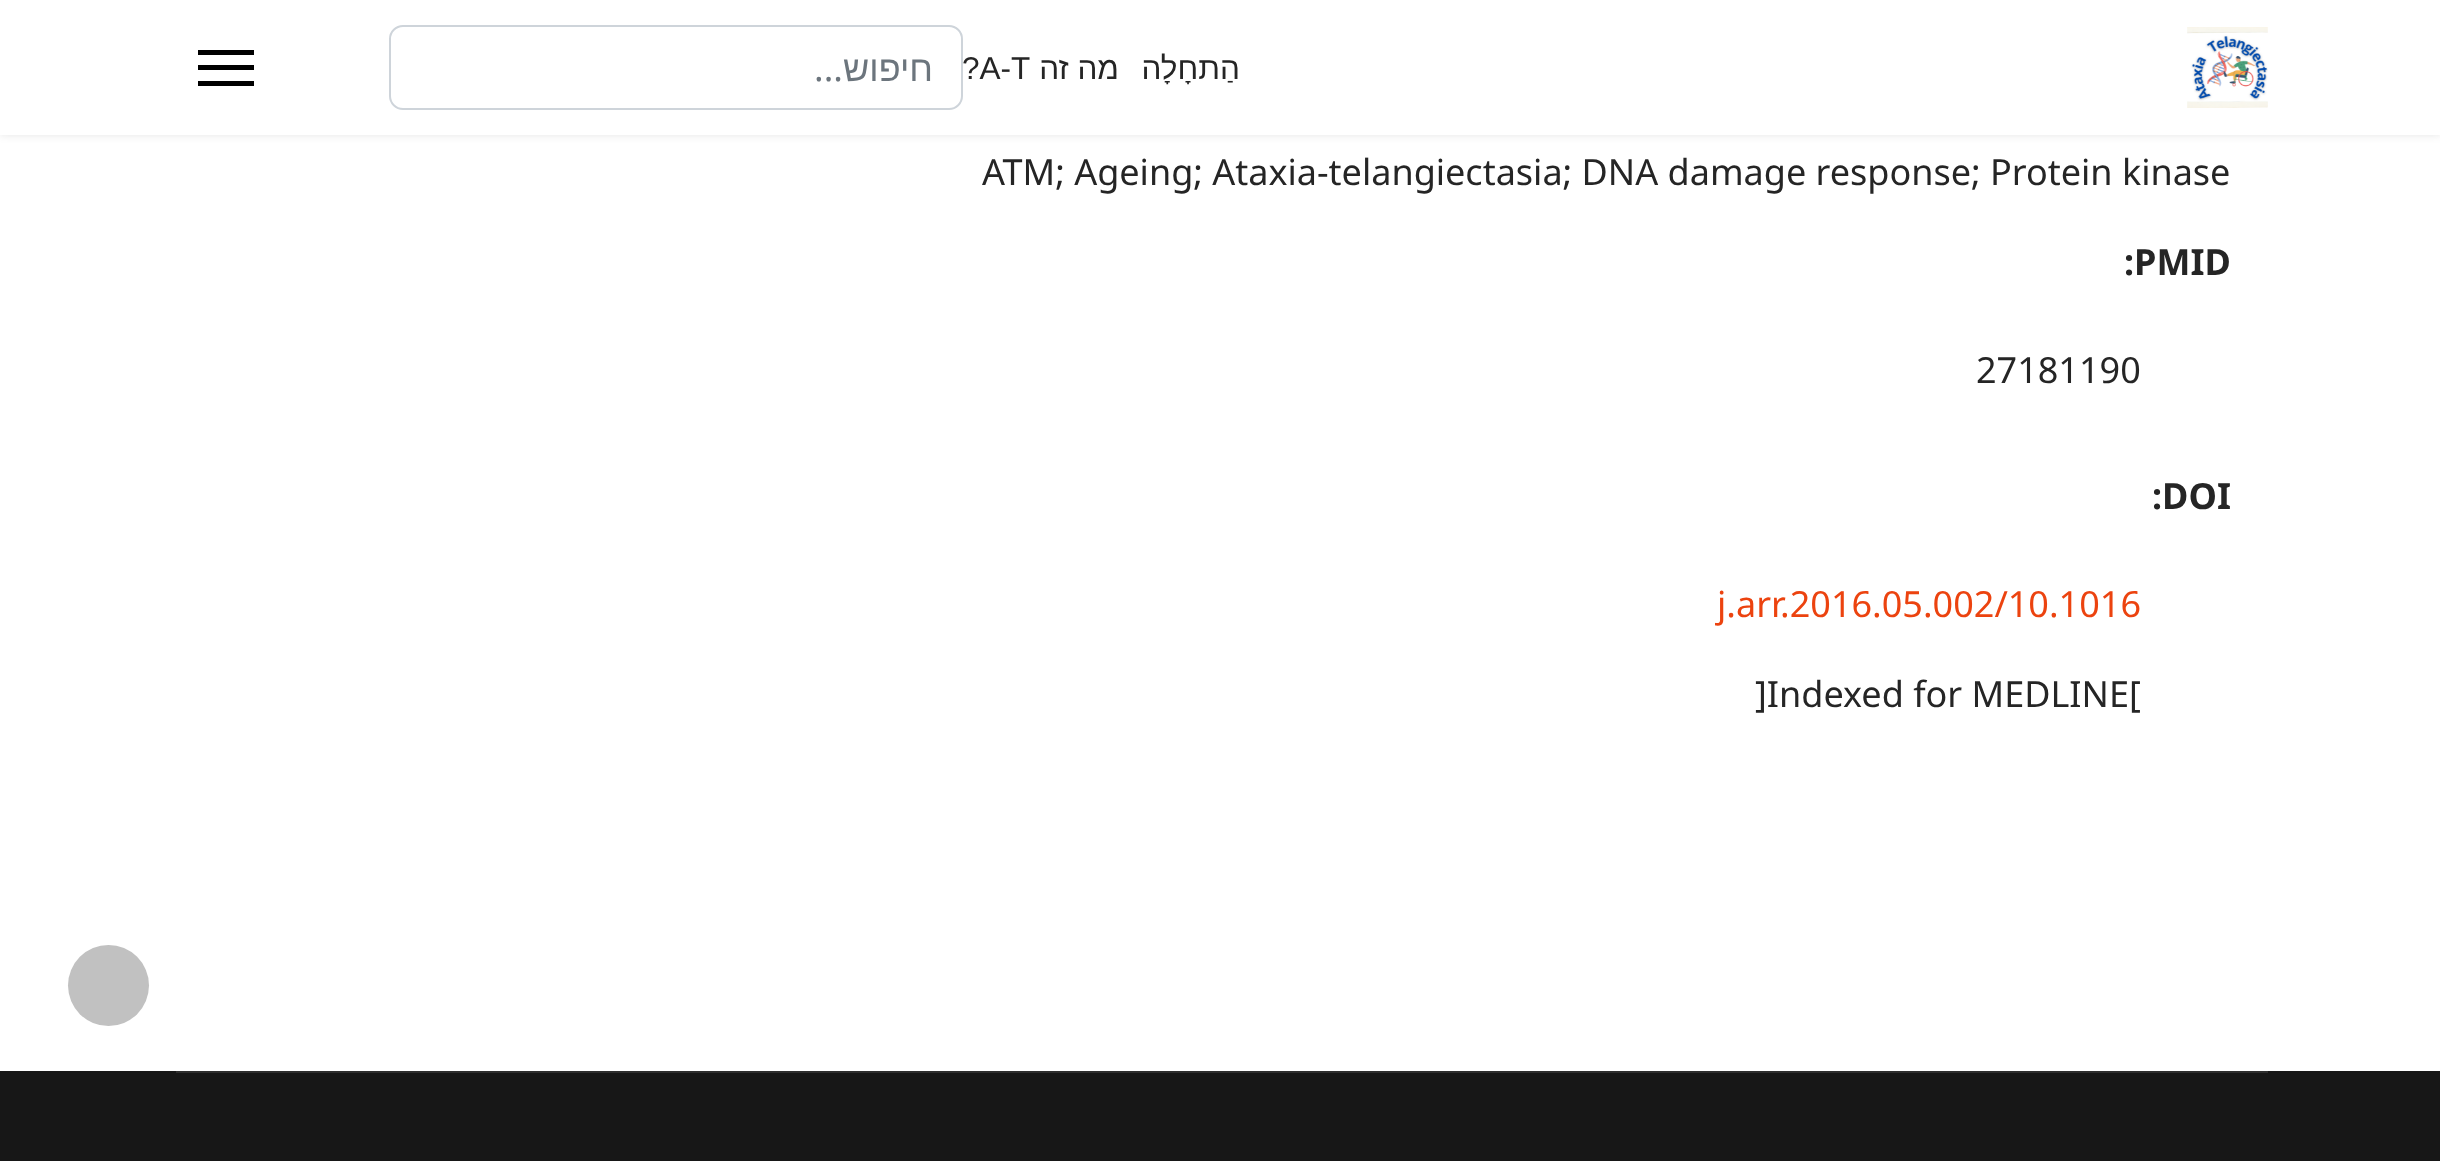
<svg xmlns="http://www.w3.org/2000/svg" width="2440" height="1161">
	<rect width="100%" height="100%" fill="#FFFFFF" />
	<rect x="0" y="0" width="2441" height="135" fill="#000000" fill-opacity="0.1" filter="blur(4.5px)" />
	<rect x="0" y="0" width="2440" height="135" fill="#FFFFFF" />
	<rect x="198" y="50" width="56" height="5" fill="#000000" />
	<rect x="198" y="65" width="56" height="5" fill="#000000" />
	<rect x="198" y="81" width="56" height="5" fill="#000000" />
	<rect x="390" y="26" width="572" height="83" rx="13" fill="none" stroke="#CED4DA" stroke-width="2" />
	<text x="843" y="81" font-family="Noto Sans" font-size="36" direction="rtl" fill="#6C757D">...</text>
	<text x="933" y="81" font-family="Liberation Sans" font-size="36" direction="rtl" fill="#6C757D">חיפוש</text>
	<text x="962" y="79" font-family="Liberation Sans" font-size="31.5" fill="#252525">?A-T</text>
	<g font-family="Liberation Sans" font-size="31.5" direction="rtl" fill="#252525">
		<text x="1119" y="79">מה זה</text>
		<text x="1240" y="79">הַתחָלָה</text>
	</g>
	<image x="2187" y="27" width="81" height="81" href="assets/img1.png" />
	<text x="982" y="185" font-family="Noto Sans" font-size="36" fill="#252525">ATM; Ageing; Ataxia-telangiectasia; DNA damage response; Protein kinase</text>
	<text x="2124" y="275" font-family="Noto Sans" font-size="36" font-weight="700" fill="#252525">:PMID</text>
	<text x="1976" y="383" font-family="Noto Sans" font-size="36" fill="#252525">27181190</text>
	<text x="2152" y="509" font-family="Noto Sans" font-size="36" font-weight="700" fill="#252525">:DOI</text>
	<text x="1717" y="617" font-family="Noto Sans" font-size="36" fill="#EC430F">j.arr.2016.05.002/10.1016</text>
	<text x="1755" y="707" font-family="Noto Sans" font-size="36" fill="#252525">]Indexed for MEDLINE[</text>
	<rect x="0" y="1071" width="2440" height="90" fill="#171717" />
	<rect x="176" y="1071" width="2092" height="2" fill="#2E2E2E" />
	<circle cx="108.5" cy="985.5" r="40.5" fill="#C1C1C1" />
</svg>
